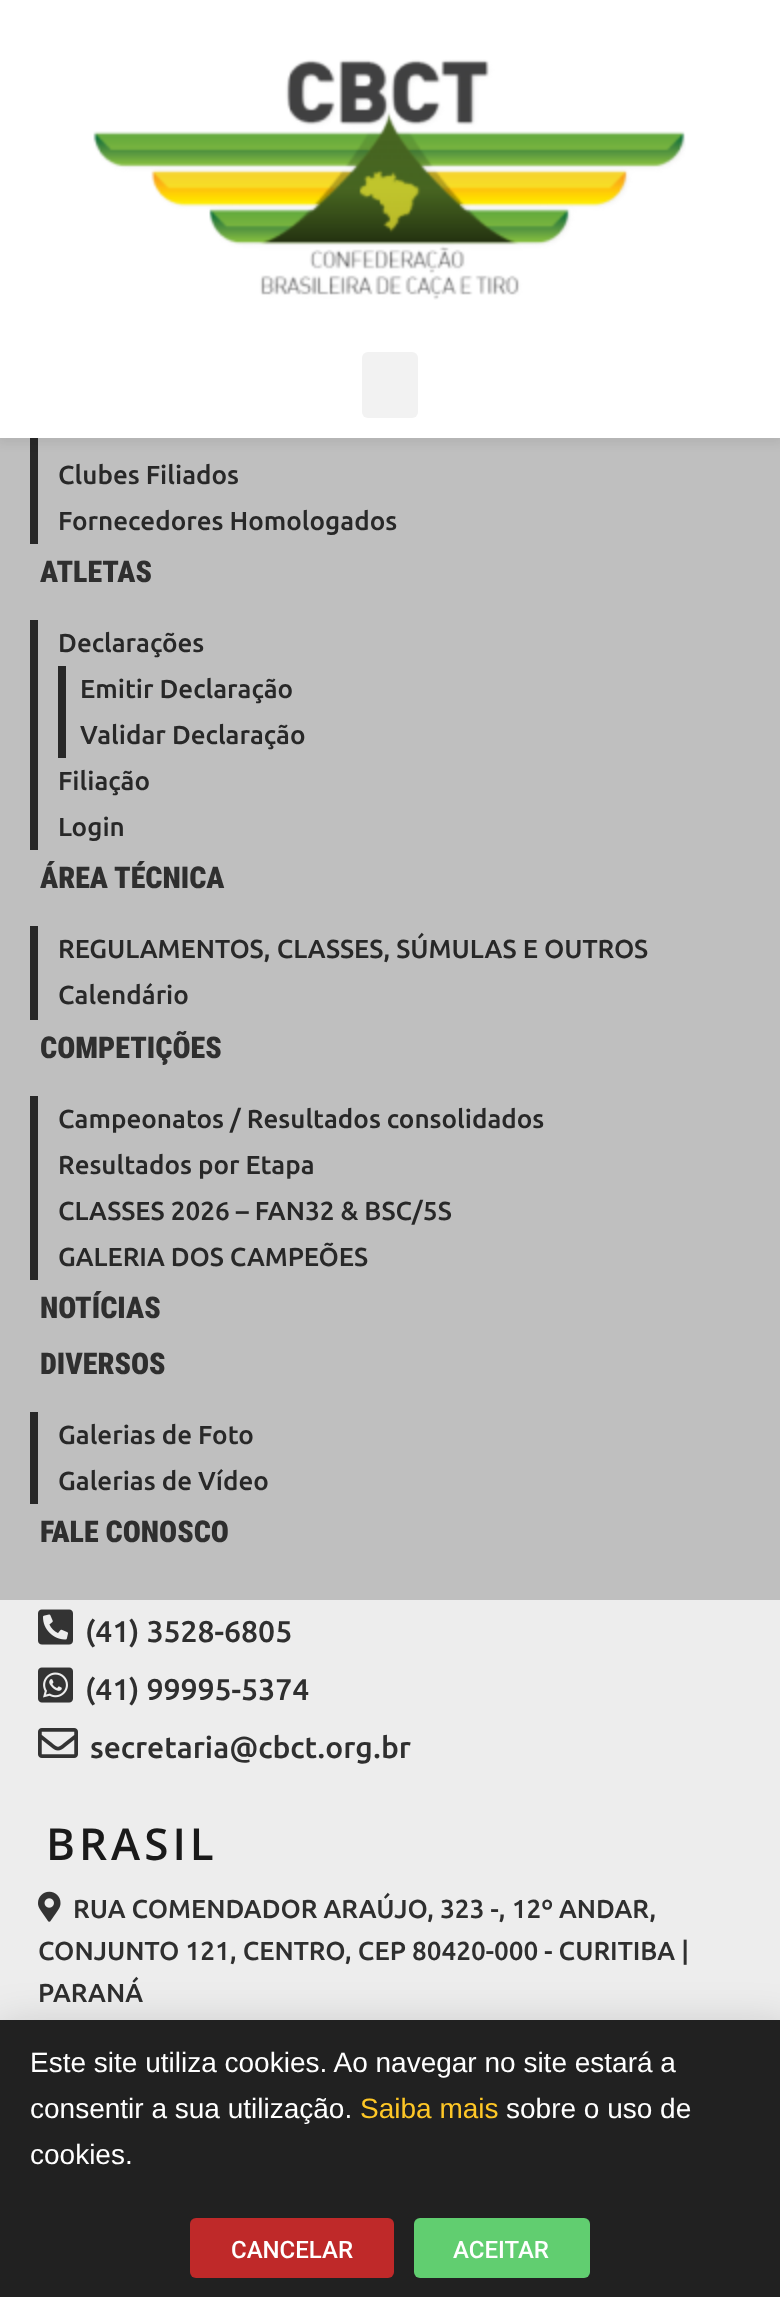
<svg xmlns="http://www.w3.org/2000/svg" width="780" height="2297">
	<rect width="100%" height="100%" fill="#EDEDED" />
	<rect x="0" y="438" width="780" height="1162" fill="#BFBFBF" />
	<rect x="30" y="438" width="8" height="106" fill="#282828" />
	<rect x="-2" y="2" width="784" height="442" fill="#000000" fill-opacity="0.06" filter="blur(5px)" />
	<rect x="0" y="0" width="780" height="438" fill="#FFFFFF" />
	<image x="93" y="59" width="593" height="241" href="assets/img1.png" />
	<rect x="362" y="352" width="56" height="66" rx="6" fill="#F2F2F2" />
	<g font-family="Ubuntu" font-size="26" font-weight="500" fill="#282828">
		<text x="58" y="484">Clubes Filiados</text>
		<text x="58" y="530">Fornecedores Homologados</text>
	</g>
	<text x="40" y="582" font-family="Roboto Condensed" font-size="30" font-weight="900" fill="#2F2F2F">ATLETAS</text>
	<rect x="30" y="620" width="8" height="230" fill="#282828" />
	<text x="58" y="652" font-family="Ubuntu" font-size="26" font-weight="500" fill="#282828">Declarações</text>
	<rect x="58" y="666" width="8" height="92" fill="#282828" />
	<g font-family="Ubuntu" font-size="26" font-weight="500" fill="#282828">
		<text x="80" y="698">Emitir Declaração</text>
		<text x="80" y="744">Validar Declaração</text>
		<text x="58" y="790">Filiação</text>
		<text x="58" y="836">Login</text>
	</g>
	<text x="40" y="888" font-family="Roboto Condensed" font-size="30" font-weight="900" fill="#2F2F2F">ÁREA TÉCNICA</text>
	<rect x="30" y="926" width="8" height="94" fill="#282828" />
	<g font-family="Ubuntu" font-size="26" font-weight="500" fill="#282828">
		<text x="58" y="958">REGULAMENTOS, CLASSES, SÚMULAS E OUTROS</text>
		<text x="58" y="1004">Calendário</text>
	</g>
	<text x="40" y="1058" font-family="Roboto Condensed" font-size="30" font-weight="900" fill="#2F2F2F">COMPETIÇÕES</text>
	<rect x="30" y="1096" width="8" height="184" fill="#282828" />
	<g font-family="Ubuntu" font-size="26" font-weight="500" fill="#282828">
		<text x="58" y="1128">Campeonatos / Resultados consolidados</text>
		<text x="58" y="1174">Resultados por Etapa</text>
		<text x="58" y="1220">CLASSES 2026 – FAN32 &amp; BSC/5S</text>
		<text x="58" y="1266">GALERIA DOS CAMPEÕES</text>
	</g>
	<g font-family="Roboto Condensed" font-size="30" font-weight="900" fill="#2F2F2F">
		<text x="40" y="1318">NOTÍCIAS</text>
		<text x="40" y="1374">DIVERSOS</text>
	</g>
	<rect x="30" y="1412" width="8" height="92" fill="#282828" />
	<g font-family="Ubuntu" font-size="26" font-weight="500" fill="#282828">
		<text x="58" y="1444">Galerias de Foto</text>
		<text x="58" y="1490">Galerias de Vídeo</text>
	</g>
	<text x="40" y="1542" font-family="Roboto Condensed" font-size="30" font-weight="900" fill="#2F2F2F">FALE CONOSCO</text>
	<image x="38" y="1609" width="35" height="36" href="assets/img2.png" />
	<text x="85" y="1642" font-family="Ubuntu" font-size="30" font-weight="500" fill="#2F2F2F">(41) 3528-6805</text>
	<image x="38" y="1667" width="35" height="36" href="assets/img3.png" />
	<text x="85" y="1700" font-family="Ubuntu" font-size="30" font-weight="500" fill="#2F2F2F">(41) 99995-5374</text>
	<image x="38" y="1728" width="40" height="30" href="assets/img4.png" />
	<text x="90" y="1758" font-family="Ubuntu" font-size="30" font-weight="500" fill="#2F2F2F">secretaria@cbct.org.br</text>
	<text x="46" y="1860" font-family="Open Sans" font-size="44" font-weight="600" letter-spacing="4" fill="#1A1A1A">BRASIL</text>
	<image x="38" y="1891" width="23" height="31" href="assets/img5.png" />
	<g font-family="Ubuntu" font-size="26" font-weight="500" fill="#2F2F2F">
		<text x="73" y="1918">RUA COMENDADOR ARAÚJO, 323 -, 12º ANDAR,</text>
		<text x="38" y="1960">CONJUNTO 121, CENTRO, CEP 80420-000 - CURITIBA |</text>
		<text x="38" y="2002">PARANÁ</text>
	</g>
	<rect x="-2" y="2030" width="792" height="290" fill="#000000" fill-opacity="0.2" filter="blur(23px)" />
	<rect x="0" y="2020" width="780" height="277" fill="#212121" />
	<g font-family="Liberation Sans" font-size="28" fill="#FFFFFF">
		<text x="30" y="2072">Este site utiliza cookies. Ao navegar no site estará a</text>
		<text x="30" y="2118">consentir a sua utilização.</text>
	</g>
	<text x="360" y="2118" font-family="Liberation Sans" font-size="28" fill="#FEC726">Saiba mais</text>
	<g font-family="Liberation Sans" font-size="28" fill="#FFFFFF">
		<text x="506" y="2118">sobre o uso de</text>
		<text x="30" y="2164">cookies.</text>
	</g>
	<rect x="190" y="2218" width="204" height="60" rx="6" fill="#BF2929" />
	<text x="231" y="2258" font-family="Roboto" font-size="24" font-weight="500" fill="#FFFFFF">CANCELAR</text>
	<rect x="414" y="2218" width="176" height="60" rx="6" fill="#61CE70" />
	<text x="453" y="2258" font-family="Roboto" font-size="24" font-weight="500" fill="#FFFFFF">ACEITAR</text>
</svg>
